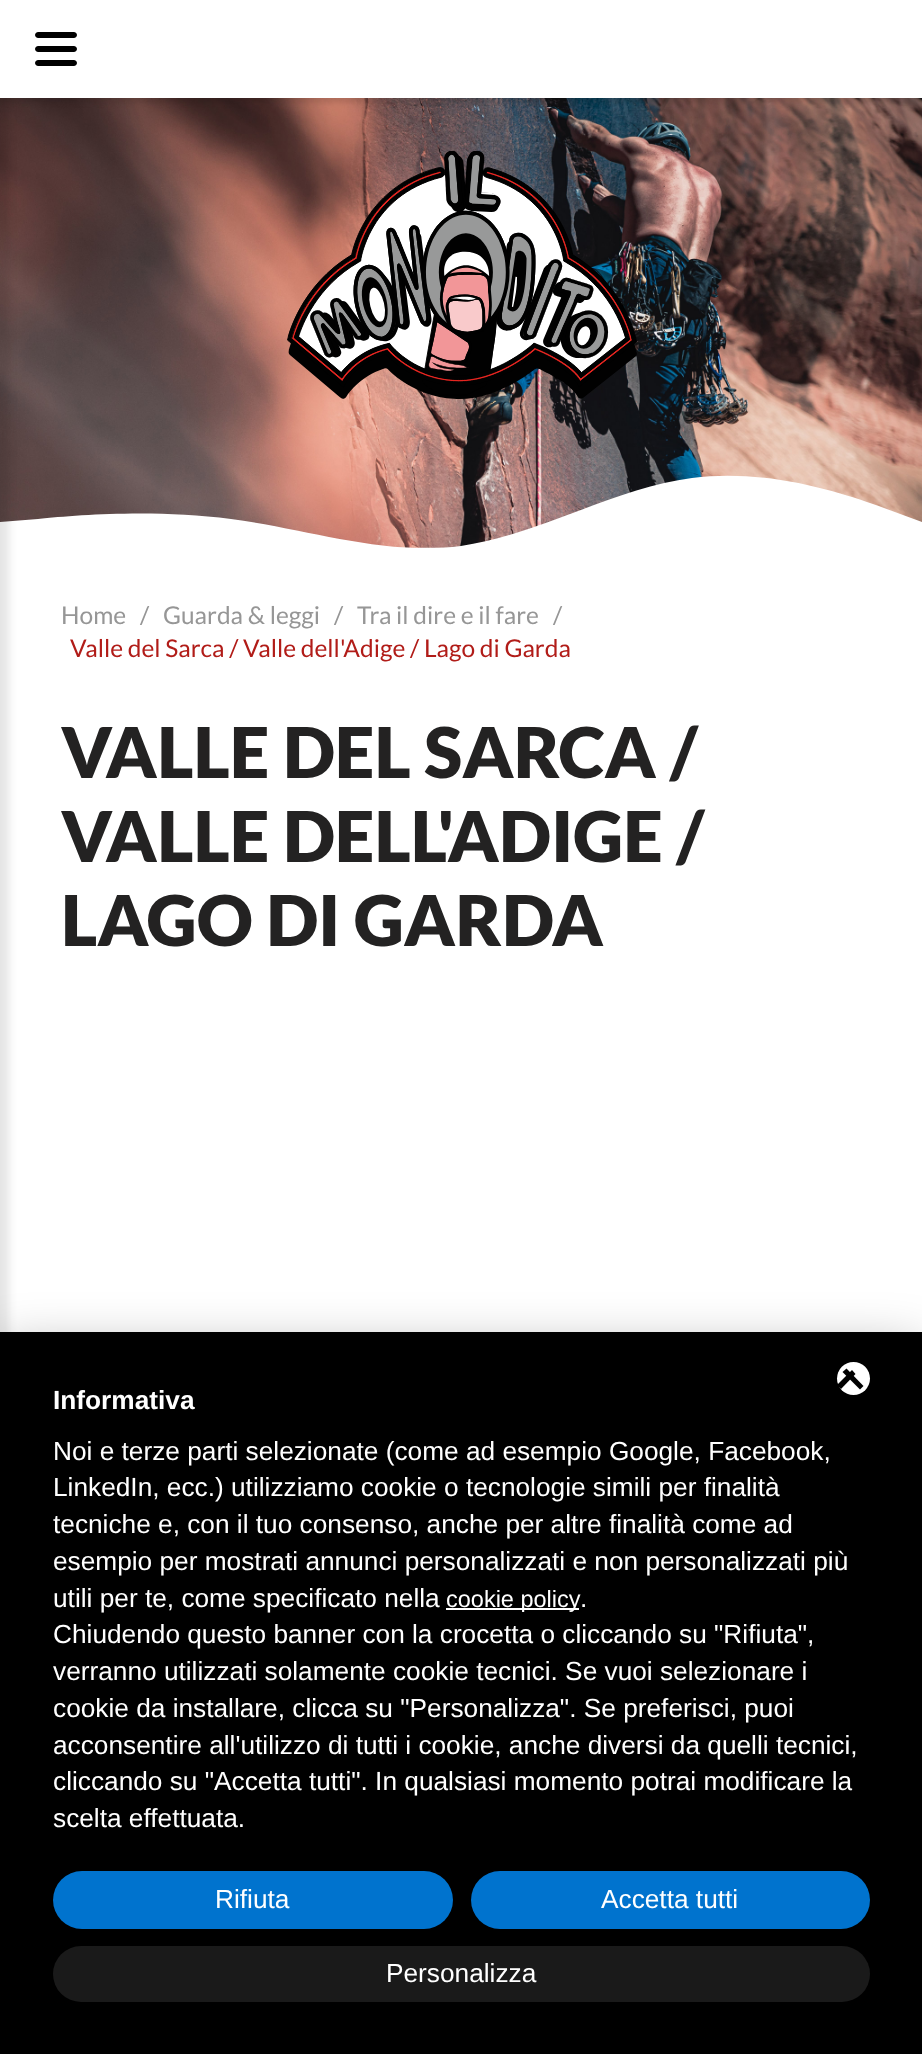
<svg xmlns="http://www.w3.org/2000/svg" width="922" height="2054">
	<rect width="100%" height="100%" fill="#FFFFFF" />
	<image x="0" y="98" width="922" height="450" href="assets/img1.png" />
	<path d="M0 522L38 519C77 515 154 509 231 519C307 529 384 556 461 546C538 535 615 488 692 478C769 468 845 494 884 508L922 522V604H0Z" fill="#FFFFFF" />
	<rect x="0" y="1349" width="922" height="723" fill="#000000" fill-opacity="0.33" filter="blur(26px)" />
	<rect x="0" y="1332" width="922" height="722" fill="#000000" />
	<rect x="-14" y="-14" width="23" height="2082" fill="#000000" fill-opacity="0.1" filter="blur(4.5px)" />
	<rect x="0" y="5" width="922" height="98" fill="#000000" fill-opacity="0.1" filter="blur(2.5px)" />
	<rect x="0" y="0" width="922" height="98" fill="#FFFFFF" />
	<path d="M74 52H38C37 52 35 51 35 49C35 47 37 46 38 46H74C75 46 77 47 77 49C77 51 75 52 74 52ZM74 66H38C37 66 35 65 35 63C35 61 37 60 38 60H74C75 60 77 61 77 63C77 65 75 66 74 66ZM74 38H38C37 38 35 37 35 35C35 33 37 32 38 32H74C75 32 77 33 77 35C77 37 75 38 74 38Z" fill="#000000" />
	<image x="287" y="151" width="350" height="248" href="assets/img2.png" />
	<g font-family="Lato" font-size="24.5" fill="#969696">
		<text x="61" y="624">Home</text>
		<text x="140" y="624">/</text>
		<text x="163" y="624">Guarda &amp; leggi</text>
		<text x="334" y="624">/</text>
		<text x="357" y="624">Tra il dire e il fare</text>
		<text x="553" y="624">/</text>
	</g>
	<text x="70" y="657" font-family="Lato" font-size="24.5" fill="#B11C18">Valle del Sarca / Valle dell'Adige / Lago di Garda</text>
	<g font-family="Lato" font-size="70" font-weight="900" fill="#232222">
		<text x="61" y="778">VALLE DEL SARCA /</text>
		<text x="61" y="862">VALLE DELL'ADIGE /</text>
		<text x="61" y="946">LAGO DI GARDA</text>
	</g>
	<circle cx="853.5" cy="1378.5" r="16.5" fill="#FFFFFF" />
	<path d="M842.5 1372L846.5 1368.5L863.5 1386L860 1389.5Z" fill="#000000" />
	<path d="M852 1370L855.5 1374L841 1389L837 1385Z" fill="#000000" />
	<text x="53" y="1409" font-family="Liberation Sans" font-size="26.25" font-weight="700" fill="#FFFFFF">Informativa</text>
	<g font-family="Liberation Sans" font-size="26.25" fill="#FFFFFF">
		<text x="53" y="1460">Noi e terze parti selezionate (come ad esempio Google, Facebook,</text>
		<text x="53" y="1496">LinkedIn, ecc.) utilizziamo cookie o tecnologie simili per finalità</text>
		<text x="53" y="1533">tecniche e, con il tuo consenso, anche per altre finalità come ad</text>
		<text x="53" y="1570">esempio per mostrati annunci personalizzati e non personalizzati più</text>
		<text x="53" y="1607">utili per te, come specificato nella</text>
	</g>
	<rect x="446" y="1608" width="133" height="2" fill="#FFFFFF" />
	<text x="446" y="1607" font-family="Liberation Sans" font-size="23.5" fill="#FFFFFF">cookie policy</text>
	<g font-family="Liberation Sans" font-size="26.25" fill="#FFFFFF">
		<text x="580" y="1607">.</text>
		<text x="53" y="1643">Chiudendo questo banner con la crocetta o cliccando su "Rifiuta",</text>
		<text x="53" y="1680">verranno utilizzati solamente cookie tecnici. Se vuoi selezionare i</text>
		<text x="53" y="1717">cookie da installare, clicca su "Personalizza". Se preferisci, puoi</text>
		<text x="53" y="1754">acconsentire all'utilizzo di tutti i cookie, anche diversi da quelli tecnici,</text>
		<text x="53" y="1790">cliccando su "Accetta tutti". In qualsiasi momento potrai modificare la</text>
		<text x="53" y="1827">scelta effettuata.</text>
	</g>
	<rect x="53" y="1871" width="400" height="58" rx="29" fill="#0073CE" />
	<text x="215" y="1908" font-family="Liberation Sans" font-size="26.25" fill="#FFFFFF">Rifiuta</text>
	<rect x="471" y="1871" width="399" height="58" rx="29" fill="#0073CE" />
	<text x="601" y="1908" font-family="Liberation Sans" font-size="26.25" fill="#FFFFFF">Accetta tutti</text>
	<rect x="53" y="1946" width="817" height="56" rx="28" fill="#1A1A1A" />
	<text x="386" y="1982" font-family="Liberation Sans" font-size="26.25" fill="#FFFFFF">Personalizza</text>
</svg>
